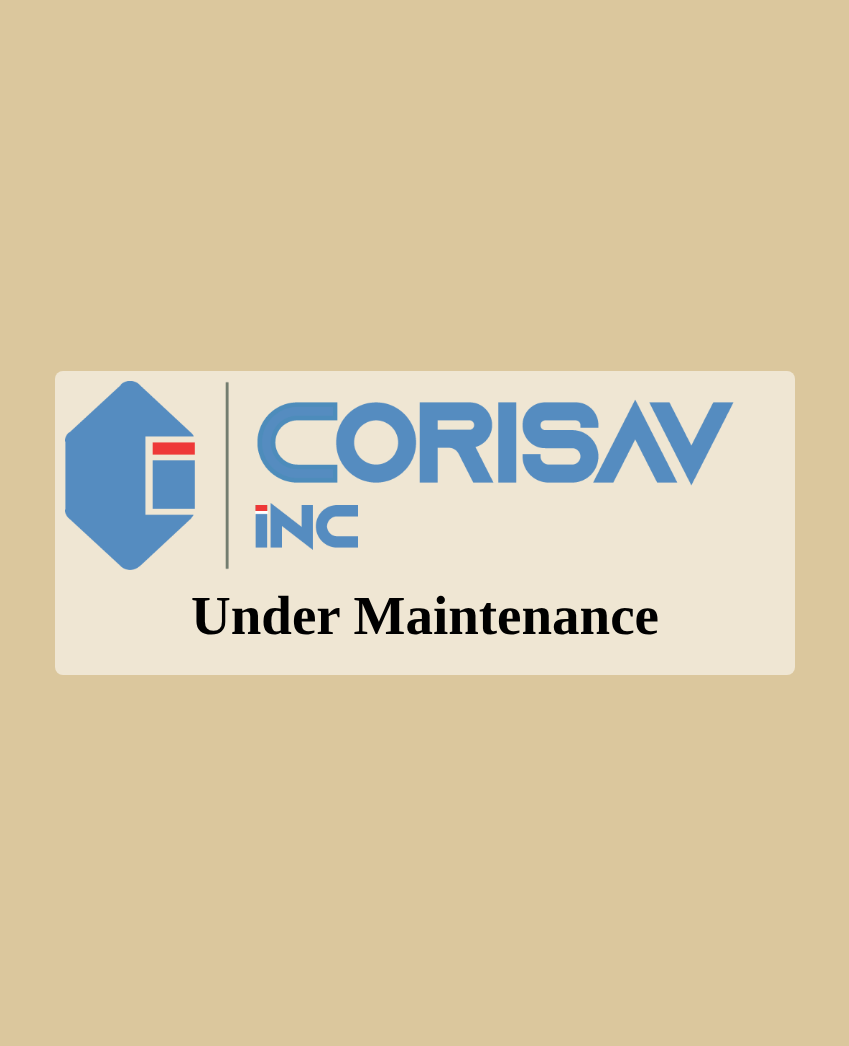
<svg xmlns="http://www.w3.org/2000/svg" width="849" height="1046">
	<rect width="100%" height="100%" fill="#DBC79D" />
	<rect x="55" y="371" width="740" height="304" rx="8" fill="#EFE6D3" />
	<image x="65" y="381" width="669" height="189" href="assets/img1.png" />
	<text x="191" y="634" font-family="Liberation Serif" font-size="55" font-weight="700" fill="#000000">Under Maintenance</text>
</svg>
